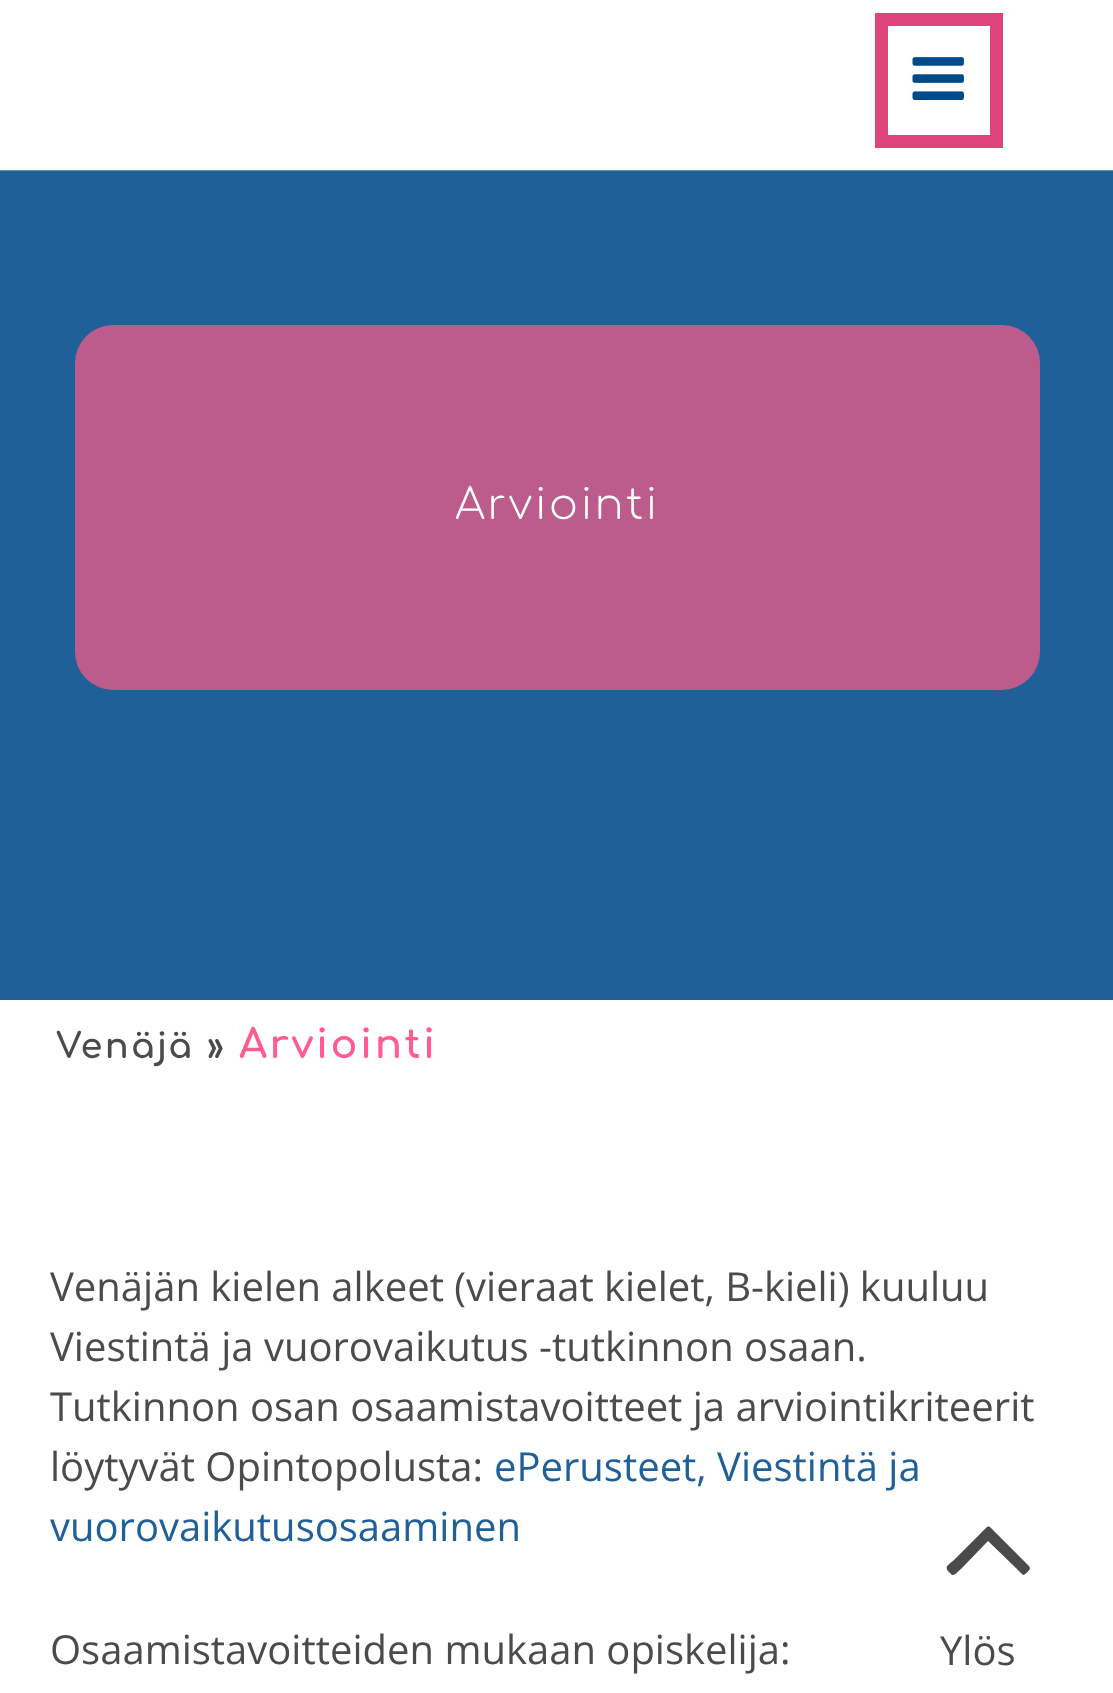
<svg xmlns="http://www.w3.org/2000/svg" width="1113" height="1693">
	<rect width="100%" height="100%" fill="#FFFFFF" />
	<rect x="881.5" y="19.5" width="115" height="122" fill="none" stroke="#DF457B" stroke-width="13" />
	<image x="912" y="57" width="52" height="43" href="assets/img1.png" />
	<rect x="0" y="171" width="1113" height="829" fill="#1F6098" />
	<rect x="0" y="170" width="1113" height="1" fill="#6290B7" />
	<rect x="75" y="325" width="965" height="365" rx="38" fill="#BB5C8D" />
	<text x="455" y="519" font-family="Comfortaa" font-size="42.5" font-weight="300" letter-spacing="2.5" fill="#FFFFFF">Arviointi</text>
	<text x="56" y="1058" font-family="Comfortaa" font-size="35" font-weight="700" letter-spacing="2.5" fill="#4B4B4B">Venäjä »</text>
	<text x="239" y="1058" font-family="Comfortaa" font-size="40" font-weight="700" letter-spacing="2.5" fill="#FF5D8F">Arviointi</text>
	<g font-family="Open Sans" font-size="40" fill="#4B4B4B">
		<text x="50" y="1301">Venäjän kielen alkeet (vieraat kielet, B-kieli) kuuluu</text>
		<text x="50" y="1361">Viestintä ja vuorovaikutus -tutkinnon osaan.</text>
		<text x="50" y="1421">Tutkinnon osan osaamistavoitteet ja arviointikriteerit</text>
		<text x="50" y="1481">löytyvät Opintopolusta:</text>
	</g>
	<g font-family="Open Sans" font-size="40" fill="#1F6098">
		<text x="494" y="1481">ePerusteet, Viestintä ja</text>
		<text x="50" y="1541">vuorovaikutusosaaminen</text>
	</g>
	<text x="50" y="1664" font-family="Open Sans" font-size="40" fill="#4B4B4B">Osaamistavoitteiden mukaan opiskelija:</text>
	<path d="M1030 1568L1029 1566L997 1534C987 1524 990 1524 980 1534L954 1560C950 1564 944 1566 948 1571L952 1575C955 1576 960 1569 961 1569L988 1541L1022 1574L1023 1575C1025 1575 1030 1570 1030 1568Z" fill="#4B4B4B" />
	<text x="940" y="1665" font-family="Open Sans" font-size="40" fill="#4B4B4B">Ylös</text>
</svg>
